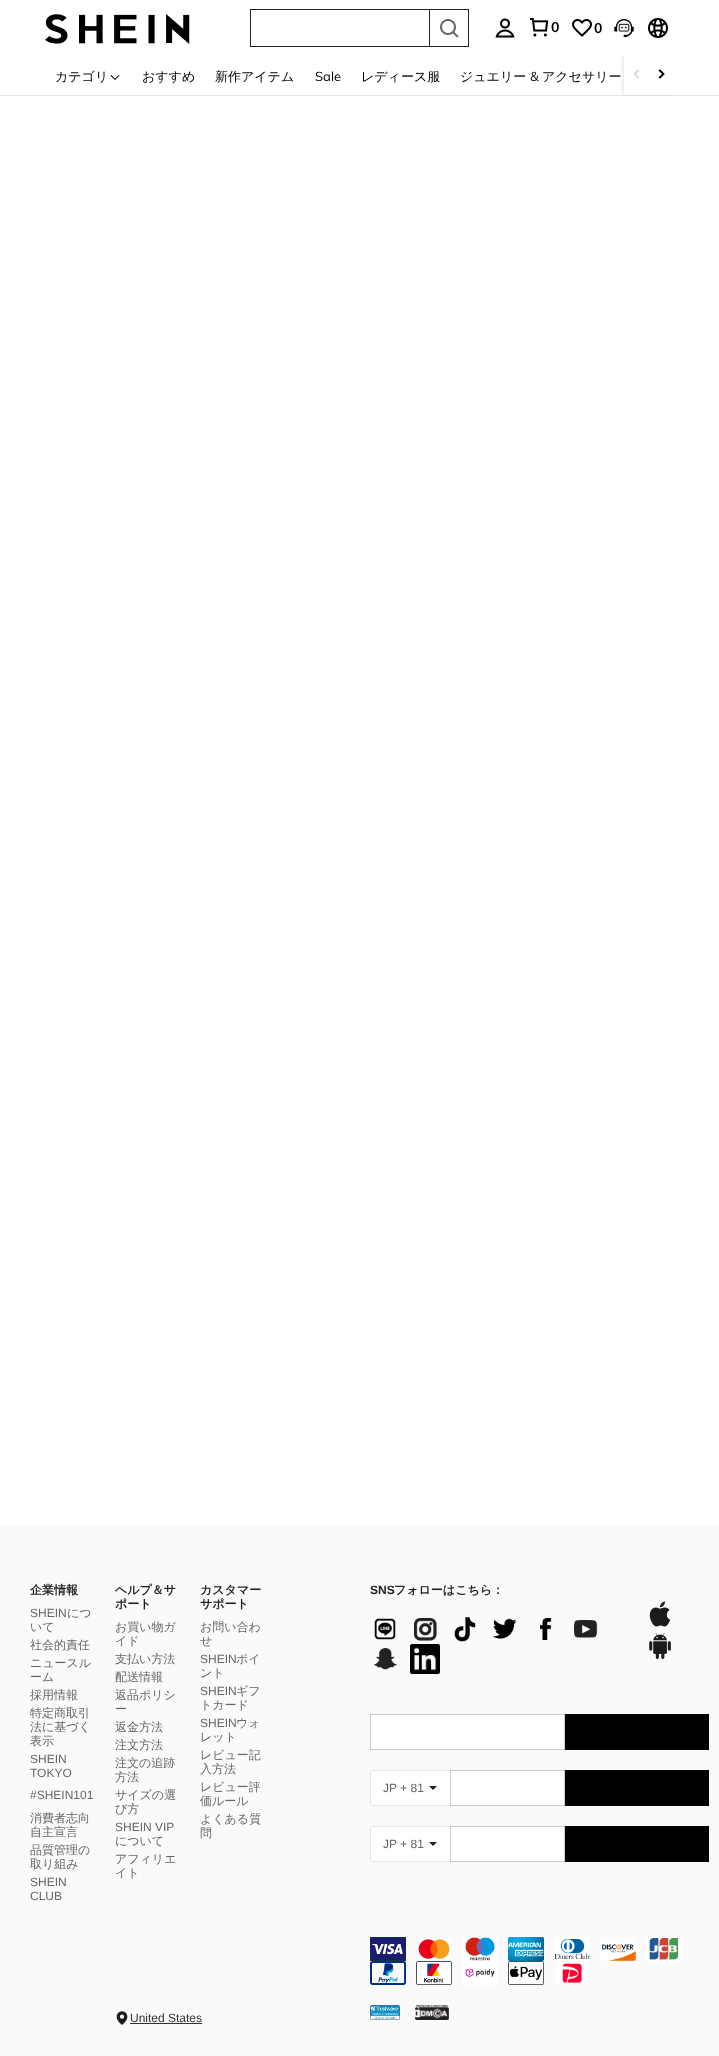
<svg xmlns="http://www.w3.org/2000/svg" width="719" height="2056">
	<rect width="100%" height="100%" fill="#FFFFFF" />
	<rect x="0" y="95" width="719" height="1" fill="#E5E5E5" />
	<rect x="622" y="56" width="50" height="39" fill="#000000" fill-opacity="0.08" filter="blur(1.5px)" />
	<rect x="621" y="54" width="52" height="2" fill="#FFFFFF" />
	<image x="45" y="14" width="145" height="30" href="assets/img1.png" />
	<rect x="250" y="9" width="179" height="1" fill="#222222" />
	<rect x="250" y="46" width="179" height="1" fill="#222222" />
	<rect x="250" y="9" width="1" height="38" fill="#222222" />
	<rect x="429.5" y="9.5" width="39" height="37" fill="none" stroke="#222222" />
	<image x="440" y="19" width="19" height="19" href="assets/img2.png" />
	<image x="495" y="18" width="20" height="20" href="assets/img3.png" />
	<image x="530" y="18" width="19" height="19" href="assets/img4.png" />
	<text x="551" y="32" font-family="Muli" font-size="14" font-weight="700" fill="#000000">0</text>
	<image x="572" y="19" width="20" height="18" href="assets/img5.png" />
	<text x="594" y="33" font-family="Muli" font-size="14" font-weight="700" fill="#000000">0</text>
	<image x="614" y="19" width="20" height="19" href="assets/img6.png" />
	<image x="648" y="18" width="20" height="20" href="assets/img7.png" />
	<text x="55" y="81" font-family="WenQuanYi Zen Hei" font-size="13" font-weight="500" fill="#000000">カテゴリ</text>
	<image x="110" y="75" width="10" height="5" href="assets/img8.png" />
	<g font-family="WenQuanYi Zen Hei" font-size="13" font-weight="500" fill="#000000">
		<text x="142" y="81">おすすめ</text>
		<text x="215" y="81">新作アイテム</text>
	</g>
	<text x="315" y="81" font-family="Muli" font-size="13" fill="#000000">Sale</text>
	<g font-family="WenQuanYi Zen Hei" font-size="13" font-weight="500" fill="#000000">
		<text x="361" y="81">レディース服</text>
		<text x="460" y="81">ジュエリー</text>
	</g>
	<text x="530" y="81" font-family="Muli" font-size="13" fill="#000000">&amp;</text>
	<text x="542" y="81" font-family="WenQuanYi Zen Hei" font-size="13" font-weight="500" fill="#000000">アクセサリー</text>
	<rect x="624" y="56" width="50" height="39" fill="#FFFFFF" />
	<image x="633" y="69" width="7" height="10" href="assets/img9.png" />
	<image x="658" y="69" width="7" height="10" href="assets/img10.png" />
	<rect x="0" y="1524" width="719" height="532" fill="#FAFAFA" />
	<text x="30" y="1594" font-family="WenQuanYi Zen Hei" font-size="12" font-weight="700" fill="#222222">企業情報</text>
	<text x="30" y="1617" font-family="Liberation Sans" font-size="12" fill="#666666">SHEIN</text>
	<g font-family="WenQuanYi Zen Hei" font-size="12" font-weight="500" fill="#666666">
		<text x="67" y="1617">につ</text>
		<text x="30" y="1631">いて</text>
		<text x="30" y="1649">社会的責任</text>
		<text x="30" y="1667">ニュースル</text>
		<text x="30" y="1681">ーム</text>
		<text x="30" y="1699">採用情報</text>
		<text x="30" y="1717">特定商取引</text>
		<text x="30" y="1731">法に基づく</text>
		<text x="30" y="1745">表示</text>
	</g>
	<g font-family="Liberation Sans" font-size="12" fill="#666666">
		<text x="30" y="1763">SHEIN</text>
		<text x="30" y="1777">TOKYO</text>
		<text x="30" y="1799">#SHEIN101</text>
	</g>
	<g font-family="WenQuanYi Zen Hei" font-size="12" font-weight="500" fill="#666666">
		<text x="30" y="1822">消費者志向</text>
		<text x="30" y="1836">自主宣言</text>
		<text x="30" y="1854">品質管理の</text>
		<text x="30" y="1868">取り組み</text>
	</g>
	<g font-family="Liberation Sans" font-size="12" fill="#666666">
		<text x="30" y="1886">SHEIN</text>
		<text x="30" y="1900">CLUB</text>
	</g>
	<g font-family="WenQuanYi Zen Hei" font-size="12" font-weight="700" fill="#222222">
		<text x="115" y="1594">ヘルプ＆サ</text>
		<text x="115" y="1608">ポート</text>
	</g>
	<g font-family="WenQuanYi Zen Hei" font-size="12" font-weight="500" fill="#666666">
		<text x="115" y="1631">お買い物ガ</text>
		<text x="115" y="1645">イド</text>
		<text x="115" y="1663">支払い方法</text>
		<text x="115" y="1681">配送情報</text>
		<text x="115" y="1699">返品ポリシ</text>
		<text x="115" y="1713">ー</text>
		<text x="115" y="1731">返金方法</text>
		<text x="115" y="1749">注文方法</text>
		<text x="115" y="1767">注文の追跡</text>
		<text x="115" y="1781">方法</text>
		<text x="115" y="1799">サイズの選</text>
		<text x="115" y="1813">び方</text>
	</g>
	<text x="115" y="1831" font-family="Liberation Sans" font-size="12" fill="#666666">SHEIN VIP</text>
	<g font-family="WenQuanYi Zen Hei" font-size="12" font-weight="500" fill="#666666">
		<text x="115" y="1845">について</text>
		<text x="115" y="1863">アフィリエ</text>
		<text x="115" y="1877">イト</text>
	</g>
	<g font-family="WenQuanYi Zen Hei" font-size="12" font-weight="700" fill="#222222">
		<text x="200" y="1594">カスタマー</text>
		<text x="200" y="1608">サポート</text>
	</g>
	<g font-family="WenQuanYi Zen Hei" font-size="12" font-weight="500" fill="#666666">
		<text x="200" y="1631">お問い合わ</text>
		<text x="200" y="1645">せ</text>
	</g>
	<text x="200" y="1663" font-family="Liberation Sans" font-size="12" fill="#666666">SHEIN</text>
	<g font-family="WenQuanYi Zen Hei" font-size="12" font-weight="500" fill="#666666">
		<text x="236" y="1663">ポイ</text>
		<text x="200" y="1677">ント</text>
	</g>
	<text x="200" y="1695" font-family="Liberation Sans" font-size="12" fill="#666666">SHEIN</text>
	<g font-family="WenQuanYi Zen Hei" font-size="12" font-weight="500" fill="#666666">
		<text x="236" y="1695">ギフ</text>
		<text x="200" y="1709">トカード</text>
	</g>
	<text x="200" y="1727" font-family="Liberation Sans" font-size="12" fill="#666666">SHEIN</text>
	<g font-family="WenQuanYi Zen Hei" font-size="12" font-weight="500" fill="#666666">
		<text x="236" y="1727">ウォ</text>
		<text x="200" y="1741">レット</text>
		<text x="200" y="1759">レビュー記</text>
		<text x="200" y="1773">入方法</text>
		<text x="200" y="1791">レビュー評</text>
		<text x="200" y="1805">価ルール</text>
		<text x="200" y="1823">よくある質</text>
		<text x="200" y="1837">問</text>
	</g>
	<text x="370" y="1594" font-family="Liberation Sans" font-size="12" font-weight="700" fill="#222222">SNS</text>
	<text x="394" y="1594" font-family="WenQuanYi Zen Hei" font-size="12" font-weight="700" fill="#222222">フォローはこちら：</text>
	<image x="374" y="1618" width="22" height="22" href="assets/img11.png" />
	<image x="414" y="1618" width="23" height="23" href="assets/img12.png" />
	<image x="454" y="1617" width="22" height="25" href="assets/img13.png" />
	<image x="492" y="1618" width="25" height="21" href="assets/img14.png" />
	<image x="540" y="1618" width="12" height="22" href="assets/img15.png" />
	<image x="574" y="1620" width="24" height="18" href="assets/img16.png" />
	<image x="374" y="1648" width="23" height="22" href="assets/img17.png" />
	<image x="410" y="1644" width="30" height="30" href="assets/img18.png" />
	<image x="649" y="1601" width="22" height="26" href="assets/img19.png" />
	<image x="649" y="1633" width="22" height="26" href="assets/img20.png" />
	<rect x="370.5" y="1714.5" width="194" height="35" fill="#FFFFFF" stroke="#CCCCCC" />
	<rect x="565" y="1714" width="144" height="36" fill="#000000" />
	<rect x="371" y="1771" width="79" height="34" fill="#FFFFFF" />
	<rect x="370" y="1770" width="80" height="1" fill="#E5E5E5" />
	<rect x="370" y="1805" width="80" height="1" fill="#E5E5E5" />
	<rect x="370" y="1770" width="1" height="36" fill="#E5E5E5" />
	<text x="383" y="1792" font-family="Liberation Sans" font-size="12" fill="#666666">JP + 81</text>
	<path d="M429 1786H437L433 1790Z" fill="#222222" />
	<rect x="450.5" y="1770.5" width="114" height="35" fill="#FFFFFF" stroke="#CCCCCC" />
	<rect x="565" y="1770" width="144" height="36" fill="#000000" />
	<rect x="371" y="1827" width="79" height="34" fill="#FFFFFF" />
	<rect x="370" y="1826" width="80" height="1" fill="#E5E5E5" />
	<rect x="370" y="1861" width="80" height="1" fill="#E5E5E5" />
	<rect x="370" y="1826" width="1" height="36" fill="#E5E5E5" />
	<text x="383" y="1848" font-family="Liberation Sans" font-size="12" fill="#666666">JP + 81</text>
	<path d="M429 1842H437L433 1846Z" fill="#222222" />
	<rect x="450.5" y="1826.5" width="114" height="35" fill="#FFFFFF" stroke="#CCCCCC" />
	<rect x="565" y="1826" width="144" height="36" fill="#000000" />
	<image x="370" y="1937" width="36" height="24" href="assets/img21.png" />
	<image x="416" y="1937" width="35" height="24" href="assets/img22.png" />
	<image x="462" y="1937" width="36" height="24" href="assets/img23.png" />
	<image x="508" y="1937" width="36" height="24" href="assets/img24.png" />
	<image x="554" y="1937" width="36" height="24" href="assets/img25.png" />
	<image x="600" y="1937" width="36" height="24" href="assets/img26.png" />
	<image x="646" y="1937" width="36" height="24" href="assets/img27.png" />
	<image x="370" y="1961" width="36" height="24" href="assets/img28.png" />
	<image x="416" y="1961" width="36" height="24" href="assets/img29.png" />
	<image x="462" y="1961" width="36" height="24" href="assets/img30.png" />
	<image x="508" y="1961" width="36" height="24" href="assets/img31.png" />
	<image x="554" y="1961" width="36" height="24" href="assets/img32.png" />
	<image x="116" y="2011" width="12" height="14" href="assets/img33.png" />
	<text x="130" y="2022" font-family="Liberation Sans" font-size="12" fill="#323232">United States</text>
	<rect x="130" y="2023" width="72" height="1" fill="#323232" />
	<image x="370" y="2005" width="30" height="15" href="assets/img34.png" />
	<image x="415" y="2005" width="34" height="15" href="assets/img35.png" />
</svg>
